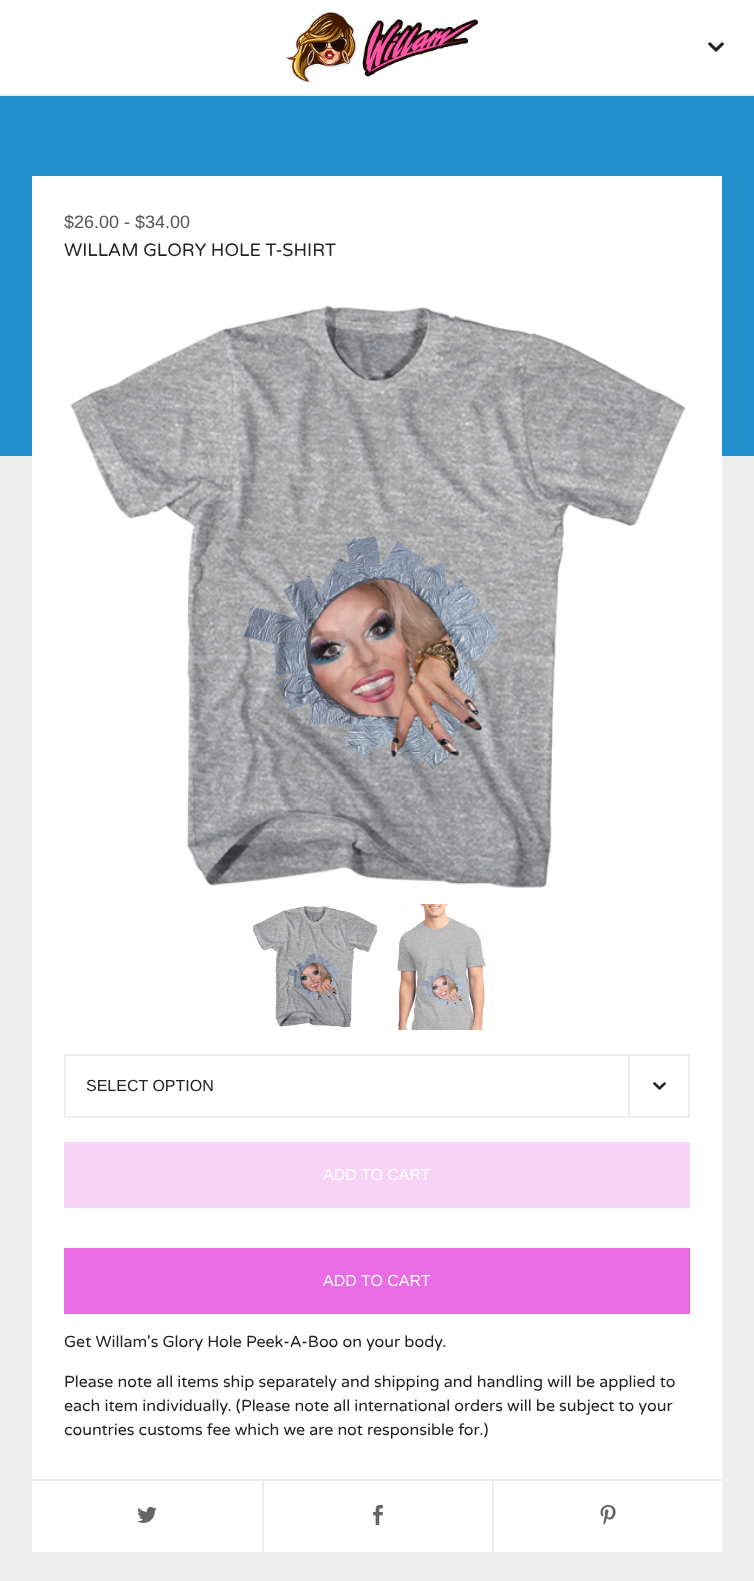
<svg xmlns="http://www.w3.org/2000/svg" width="754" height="1581">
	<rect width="100%" height="100%" fill="#EEEEEE" />
	<rect x="0" y="0" width="754" height="94" fill="#FFFFFF" />
	<image x="285" y="11" width="194" height="72" href="assets/img1.png" />
	<image x="708" y="42" width="16" height="10" href="assets/img2.png" />
	<rect x="0" y="96" width="754" height="360" fill="#218FCB" />
	<rect x="32" y="176" width="690" height="1376" fill="#FFFFFF" />
	<text x="64" y="228" font-family="Liberation Sans" font-size="18" fill="#555555">$26.00 - $34.00</text>
	<text x="64" y="256" font-family="Varela Round" font-size="18" fill="#222222">WILLAM GLORY HOLE T-SHIRT</text>
	<image x="70" y="305" width="616" height="583" href="assets/img3.png" />
	<image x="253" y="906" width="124" height="122" href="assets/img4.png" />
	<image x="397" y="904" width="89" height="126" href="assets/img5.png" />
	<rect x="65" y="1055" width="624" height="62" fill="none" stroke="#EEEEEE" stroke-width="2" />
	<text x="86" y="1091" font-family="Liberation Sans" font-size="16" fill="#222222">SELECT OPTION</text>
	<rect x="628" y="1056" width="2" height="60" fill="#EEEEEE" />
	<image x="653" y="1082" width="13" height="8" href="assets/img6.png" />
	<rect x="64" y="1142" width="626" height="66" fill="#F8D3F8" />
	<text x="323" y="1180" font-family="Liberation Sans" font-size="16" fill="#FFFFFF">ADD TO CART</text>
	<rect x="64" y="1248" width="626" height="66" fill="#E96BE6" />
	<text x="323" y="1286" font-family="Liberation Sans" font-size="16" fill="#FFFFFF">ADD TO CART</text>
	<g font-family="Varela Round" font-size="16" fill="#222222">
		<text x="64" y="1347">Get Willam's Glory Hole Peek-A-Boo on your body.</text>
		<text x="64" y="1387">Please note all items ship separately and shipping and handling will be applied to</text>
		<text x="64" y="1411">each item individually. (Please note all international orders will be subject to your</text>
		<text x="64" y="1435">countries customs fee which we are not responsible for.)</text>
	</g>
	<rect x="32" y="1479" width="690" height="2" fill="#EEEEEE" />
	<image x="137" y="1507" width="20" height="16" href="assets/img7.png" />
	<rect x="262" y="1481" width="2" height="71" fill="#EEEEEE" />
	<image x="373" y="1505" width="10" height="20" href="assets/img8.png" />
	<rect x="492" y="1481" width="2" height="71" fill="#EEEEEE" />
	<image x="600" y="1505" width="16" height="20" href="assets/img9.png" />
</svg>
